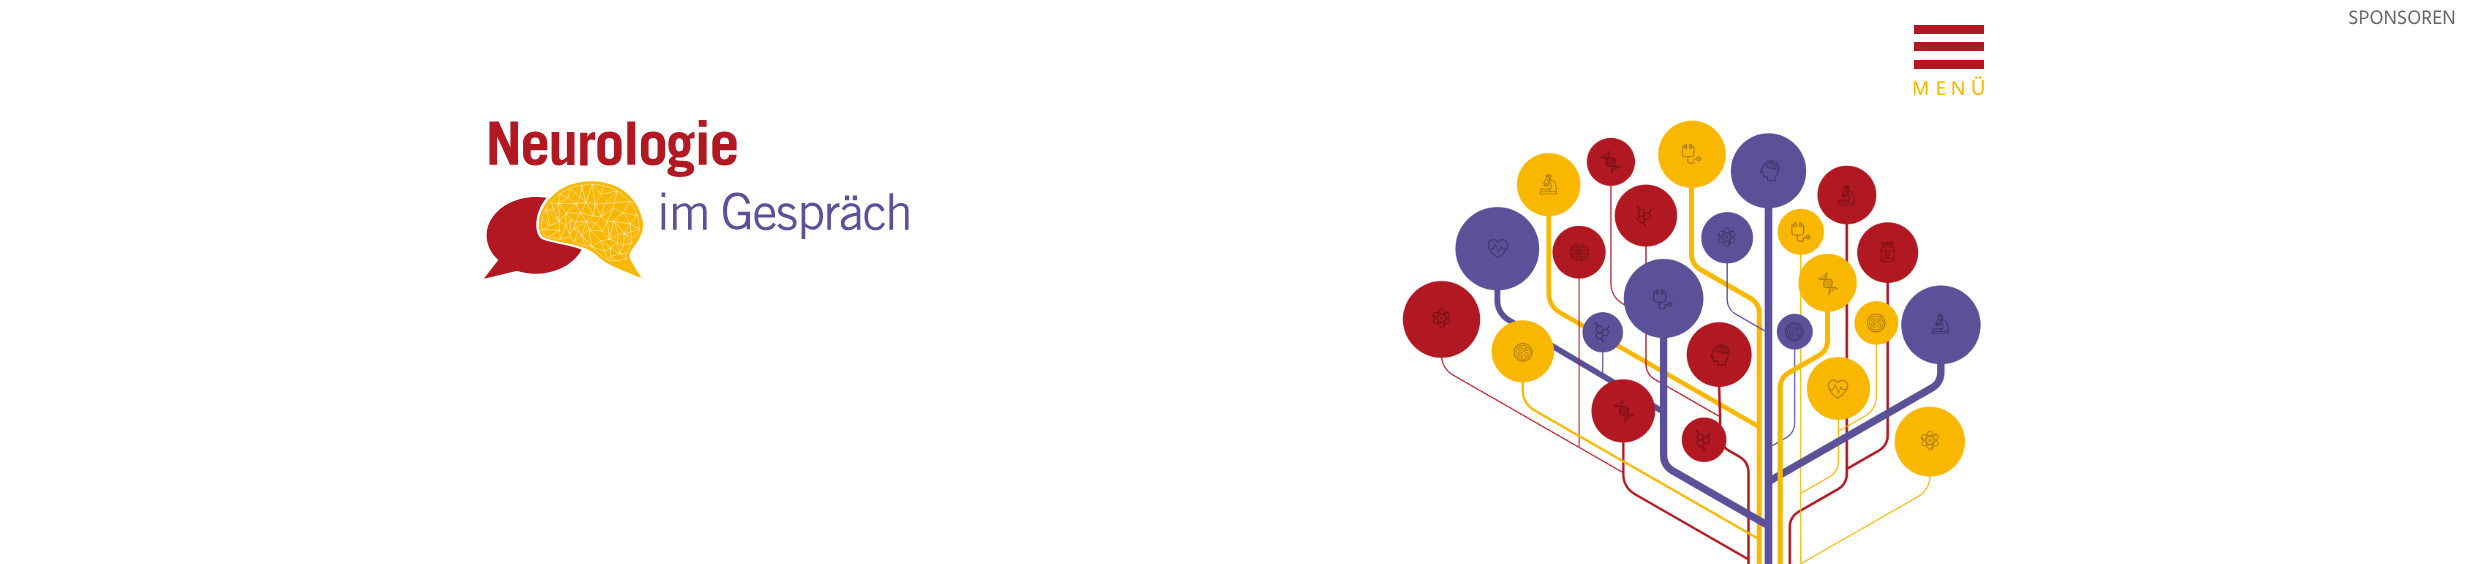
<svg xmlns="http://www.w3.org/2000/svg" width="2467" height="564">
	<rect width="100%" height="100%" fill="#FFFFFF" />
	<text x="2348" y="24" font-family="Hind" font-size="20" fill="#666666">SPONSOREN</text>
	<image x="1914" y="25" width="70" height="70" href="assets/img1.png" />
	<image x="1402" y="120" width="579" height="444" href="assets/img2.png" />
	<image x="484" y="120" width="425" height="159" href="assets/img3.png" />
</svg>
